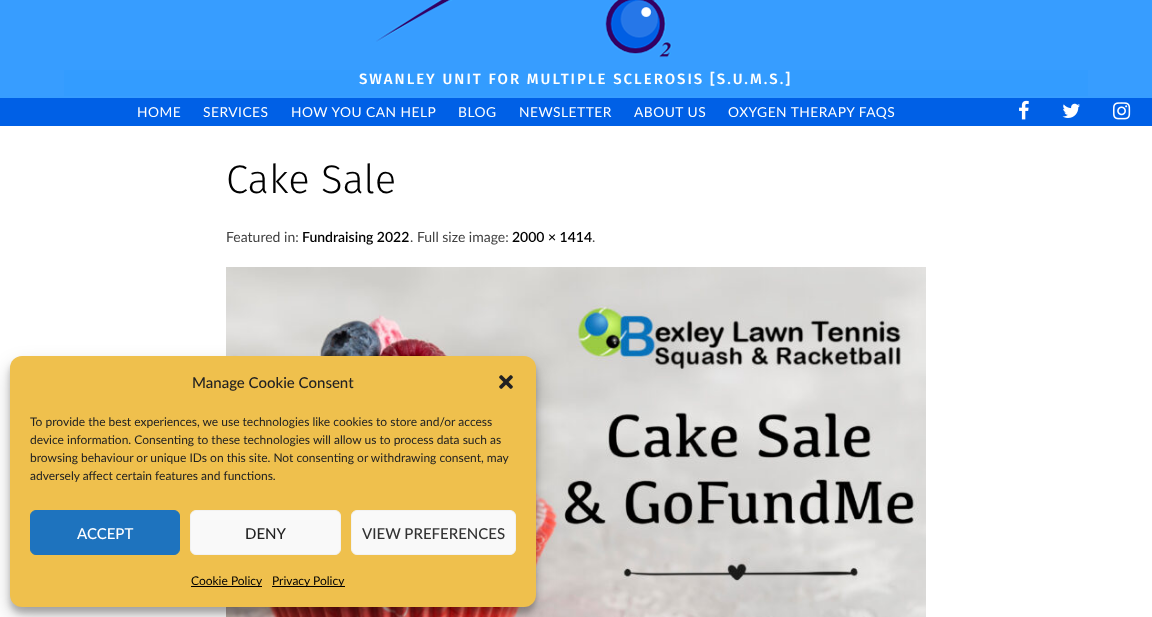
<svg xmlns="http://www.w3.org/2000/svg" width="1152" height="617">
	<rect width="100%" height="100%" fill="#FFFFFF" />
	<rect x="0" y="0" width="1152" height="98" fill="#379DFF" />
	<image x="376" y="0" width="296" height="58" href="assets/img1.png" />
	<rect x="64" y="70" width="1024" height="26" fill="#339CFF" />
	<text x="359" y="84" font-family="Fira Sans" font-size="15" font-weight="500" letter-spacing="2" fill="#FFFFFF">SWANLEY UNIT FOR MULTIPLE SCLEROSIS [S.U.M.S.]</text>
	<rect x="0" y="98" width="1152" height="28" fill="#0060E6" />
	<g font-family="Lato" font-size="13.75" letter-spacing="0.5" fill="#FFFFFF">
		<text x="137" y="117">HOME</text>
		<text x="203" y="117">SERVICES</text>
		<text x="291" y="117">HOW YOU CAN HELP</text>
		<text x="458" y="117">BLOG</text>
		<text x="519" y="117">NEWSLETTER</text>
		<text x="634" y="117">ABOUT US</text>
		<text x="728" y="117">OXYGEN THERAPY FAQS</text>
	</g>
	<image x="1019" y="100" width="10" height="20" href="assets/img2.png" />
	<image x="1062" y="103" width="18" height="15" href="assets/img3.png" />
	<image x="1113" y="102" width="18" height="18" href="assets/img4.png" />
	<text x="226" y="193" font-family="Fira Sans" font-size="40" font-weight="300" fill="#000000">Cake Sale</text>
	<text x="226" y="242" font-family="Lato" font-size="14" fill="#404040">Featured in:</text>
	<text x="302" y="242" font-family="Lato" font-size="14" font-weight="600" fill="#000000">Fundraising 2022</text>
	<text x="410" y="242" font-family="Lato" font-size="14" fill="#404040">. Full size image:</text>
	<text x="512" y="242" font-family="Lato" font-size="14" font-weight="600" fill="#000000">2000 × 1414</text>
	<text x="592" y="242" font-family="Lato" font-size="14" fill="#404040">.</text>
	<image x="226" y="267" width="700" height="350" href="assets/img5.png" />
	<rect x="10" y="362" width="526" height="251" rx="12" fill="#000000" fill-opacity="0.23" filter="blur(3px)" />
	<rect x="10" y="366" width="526" height="251" rx="12" fill="#000000" fill-opacity="0.19" filter="blur(10px)" />
	<rect x="10" y="356" width="526" height="251" rx="12" fill="#EFC04D" />
	<text x="192" y="388" font-family="Lato" font-size="15" font-weight="500" fill="#222222">Manage Cookie Consent</text>
	<image x="499" y="375" width="14" height="14" href="assets/img6.png" />
	<g font-family="Lato" font-size="12" fill="#222222">
		<text x="30" y="426">To provide the best experiences, we use technologies like cookies to store and/or access</text>
		<text x="30" y="444">device information. Consenting to these technologies will allow us to process data such as</text>
		<text x="30" y="462">browsing behaviour or unique IDs on this site. Not consenting or withdrawing consent, may</text>
		<text x="30" y="480">adversely affect certain features and functions.</text>
	</g>
	<rect x="30.5" y="510.5" width="149" height="44" rx="5.5" fill="#1E73BE" stroke="#1E73BE" />
	<text x="77" y="539" font-family="Lato" font-size="15" font-weight="500" fill="#FFFFFF">ACCEPT</text>
	<rect x="190.5" y="510.5" width="150" height="44" rx="5.5" fill="#F9F9F9" stroke="#F2F2F2" />
	<text x="245" y="539" font-family="Lato" font-size="15" font-weight="500" fill="#222222">DENY</text>
	<rect x="351.5" y="510.5" width="164" height="44" rx="5.5" fill="#F9F9F9" stroke="#F2F2F2" />
	<text x="362" y="539" font-family="Lato" font-size="15" font-weight="500" fill="#333333">VIEW PREFERENCES</text>
	<rect x="191" y="586" width="71" height="1" fill="#000000" />
	<text x="191" y="585" font-family="Lato" font-size="12" fill="#000000">Cookie Policy</text>
	<rect x="272" y="586" width="73" height="1" fill="#000000" />
	<text x="272" y="585" font-family="Lato" font-size="12" fill="#000000">Privacy Policy</text>
</svg>
